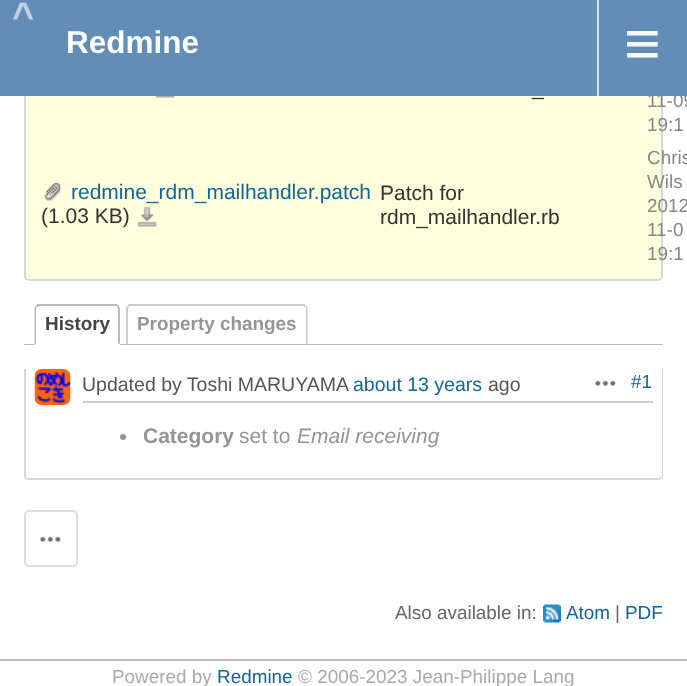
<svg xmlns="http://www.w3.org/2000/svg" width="687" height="686">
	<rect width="100%" height="100%" fill="#FFFFFF" />
	<rect x="25" y="-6" width="637" height="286" rx="4" fill="#FFFFDD" stroke="#D7D7D7" stroke-width="2" />
	<text x="647" y="107" font-family="Liberation Sans" font-size="18.9" fill="#888888">11-09</text>
	<rect x="0" y="0" width="687" height="96" fill="#628DB6" />
	<text x="12" y="29" font-family="Liberation Sans" font-size="38" font-weight="700" letter-spacing="6" fill="#C0D1E2">^</text>
	<text x="66" y="53" font-family="Liberation Sans" font-size="31.5" font-weight="700" fill="#FFFFFF">Redmine</text>
	<rect x="597" y="0" width="2" height="96" fill="#DDDDDD" />
	<text x="624" y="65" font-family="Liberation Sans" font-size="63" fill="#F8F8F8">≡</text>
	<image x="155" y="96" width="20" height="2" href="assets/img1.png" />
	<text x="532" y="95" font-family="Liberation Sans" font-size="21" fill="#333333">_</text>
	<text x="647" y="131" font-family="Liberation Sans" font-size="18.9" fill="#888888">19:1</text>
	<image x="44" y="182" width="17" height="20" href="assets/img2.png" />
	<text x="71" y="199" font-family="Liberation Sans" font-size="21" fill="#116699">redmine_rdm_mailhandler.patch</text>
	<text x="41" y="223" font-family="Liberation Sans" font-size="21" fill="#333333">(1.03 KB)</text>
	<image x="137" y="206" width="20" height="21" href="assets/img3.png" />
	<g font-family="Liberation Sans" font-size="21" fill="#333333">
		<text x="380" y="200">Patch for</text>
		<text x="380" y="224">rdm_mailhandler.rb</text>
	</g>
	<g font-family="Liberation Sans" font-size="18.9" fill="#888888">
		<text x="647" y="164">Chris</text>
		<text x="647" y="188">Wils</text>
		<text x="647" y="212">2012</text>
		<text x="647" y="236">11-0</text>
		<text x="647" y="260">19:1</text>
	</g>
	<rect x="24" y="344" width="639" height="1" fill="#BBBBBB" />
	<path d="M40 305H115C118 305 120 307 120 310V345H35V310C35 307 37 305 40 305Z" fill="#FFFFFF" />
	<path d="M39 306L37 307L36 306L37 304H117L119 306L118 307L116 306Z" fill="#BBBBBB" />
	<path d="M120 345V309C120 308 119.5 307 119 306L117.5 307L118 309V343Z" fill="#BBBBBB" />
	<path d="M120 345L118 343V344H36L34 345Z" fill="#FFFFFF" />
	<path d="M34.5 345V307.5L36 306L37 307C36 307 36 308 36 309V343.5Z" fill="#BBBBBB" />
	<text x="45" y="330" font-family="Liberation Sans" font-size="18.9" font-weight="700" fill="#444444">History</text>
	<path d="M130 306L128 307L127 306L129 304H305L306 306L305 307L303 306Z" fill="#CCCCCC" />
	<path d="M307.5 307.5V345L306 343.5V309C306 308 306 307 305 307L306 306Z" fill="#CCCCCC" />
	<path d="M308 345L306 344H128V343L126 345Z" fill="#BBBBBB" />
	<path d="M126 345L128 343V309L128.5 307L127 306C126.5 307 126 308 126 309Z" fill="#CCCCCC" />
	<text x="137" y="330" font-family="Liberation Sans" font-size="18.9" font-weight="700" fill="#959595">Property changes</text>
	<path d="M24 369H663V476C663 478 661 480 658 480H28C26 480 24 478 24 476ZM26 369H662V476C662 477 660 478 658 478H28C27 478 26 477 26 476Z" fill="#D7D7D7" fill-rule="evenodd" />
	<rect x="83" y="401" width="570" height="2" fill="#CCCCCC" />
	<image x="34" y="369" width="37" height="36" href="assets/img4.png" />
	<text x="82" y="391" font-family="Liberation Sans" font-size="19.5" fill="#555555">Updated by Toshi MARUYAMA</text>
	<text x="353" y="391" font-family="Liberation Sans" font-size="19.5" fill="#116699">about 13 years</text>
	<text x="488" y="391" font-family="Liberation Sans" font-size="19.5" fill="#555555">ago</text>
	<image x="595" y="380" width="21" height="6" href="assets/img5.png" />
	<text x="631" y="388" font-family="Liberation Sans" font-size="18.9" fill="#116699">#1</text>
	<circle cx="123" cy="437" r="3" fill="#959595" />
	<text x="143" y="443" font-family="Liberation Sans" font-size="21" font-weight="700" fill="#959595">Category</text>
	<text x="239" y="443" font-family="Liberation Sans" font-size="21" fill="#959595">set to</text>
	<text x="297" y="443" font-family="Liberation Sans" font-size="21" font-style="italic" fill="#959595">Email receiving</text>
	<rect x="25" y="511" width="52" height="55" rx="4" fill="none" stroke="#DDDDDD" stroke-width="2" />
	<image x="40" y="536" width="21" height="6" href="assets/img6.png" />
	<text x="395" y="619" font-family="Liberation Sans" font-size="18.9" fill="#666666">Also available in:</text>
	<image x="543" y="604" width="18" height="19" href="assets/img7.png" />
	<text x="566" y="619" font-family="Liberation Sans" font-size="18.9" fill="#116699">Atom</text>
	<text x="615" y="619" font-family="Liberation Sans" font-size="18.9" fill="#666666">|</text>
	<text x="625" y="619" font-family="Liberation Sans" font-size="18.9" fill="#116699">PDF</text>
	<rect x="0" y="659" width="687" height="2" fill="#BBBBBB" />
	<text x="112" y="683" font-family="Liberation Sans" font-size="18.9" fill="#AAAAAA">Powered by</text>
	<text x="217" y="683" font-family="Liberation Sans" font-size="18.9" fill="#116699">Redmine</text>
	<text x="298" y="683" font-family="Liberation Sans" font-size="18.9" fill="#AAAAAA">© 2006-2023 Jean-Philippe Lang</text>
</svg>
